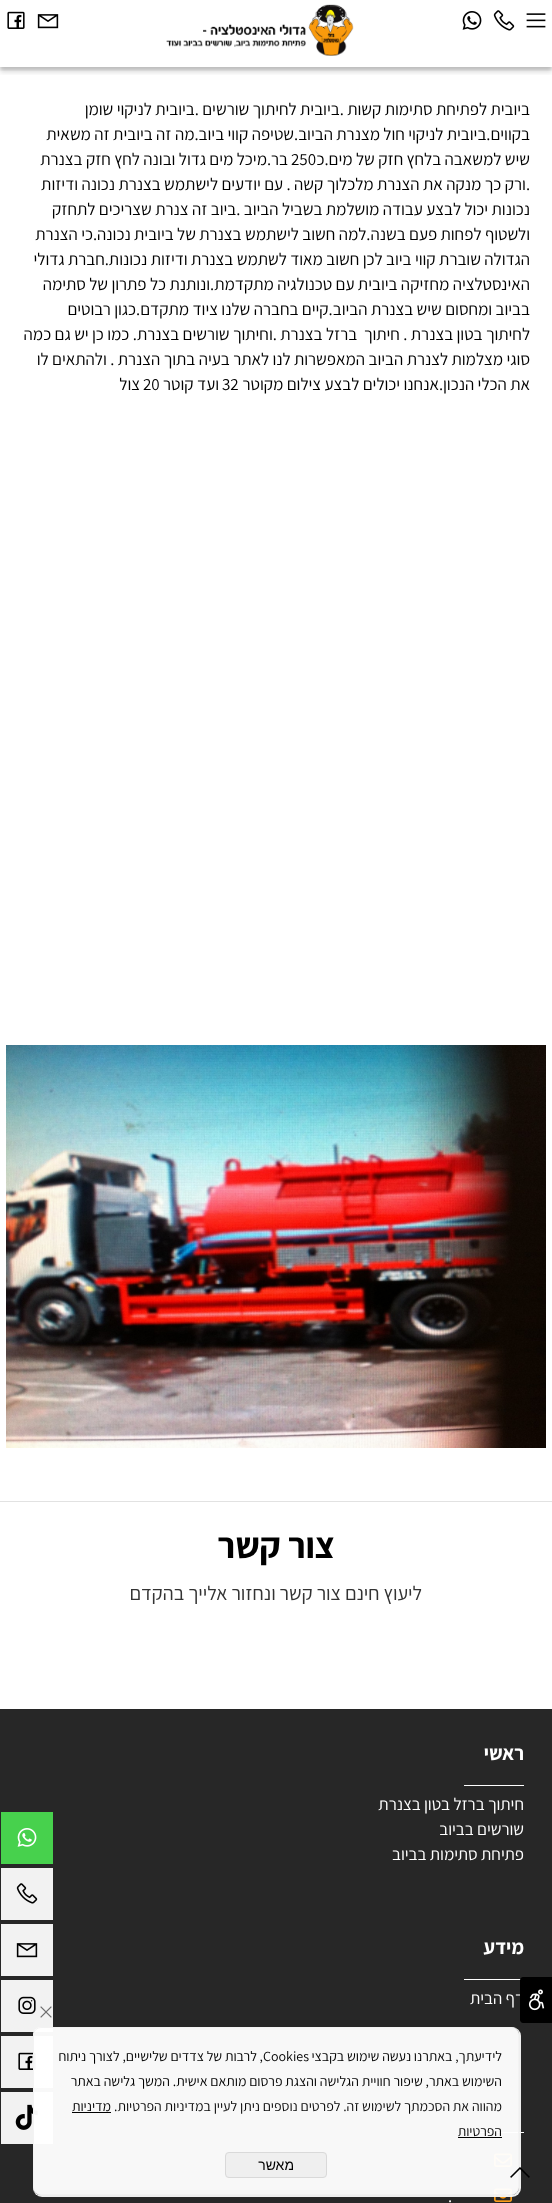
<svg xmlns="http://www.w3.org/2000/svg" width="552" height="2203">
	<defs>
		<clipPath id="clip1"><rect x="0" y="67" width="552" height="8" /></clipPath>
		<clipPath id="clip2"><rect x="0" y="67" width="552" height="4" /></clipPath>
		<clipPath id="clip3"><path d="M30 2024H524V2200H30ZM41 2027H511C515.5 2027 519 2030.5 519 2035V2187C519 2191.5 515.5 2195 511 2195H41C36.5 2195 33 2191.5 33 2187V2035C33 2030.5 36.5 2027 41 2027Z" clip-rule="evenodd" /></clipPath>
	</defs>
	<rect width="100%" height="100%" fill="#FFFFFF" />
	<g clip-path="url(#clip1)">
		<rect x="0" y="5" width="552" height="67" fill="#000000" fill-opacity="0.15" filter="blur(2.5px)" />
	</g>
	<g clip-path="url(#clip2)">
		<rect x="0" y="3" width="552" height="67" fill="#000000" fill-opacity="0.12" filter="blur(1.5px)" />
	</g>
	<image x="526" y="13" width="20" height="15" href="assets/img1.png" />
	<image x="493" y="10" width="22" height="21" href="assets/img2.png" />
	<image x="462" y="11" width="20" height="19" href="assets/img3.png" />
	<image x="166" y="4" width="188" height="52" href="assets/img4.png" />
	<image x="37" y="14" width="22" height="15" href="assets/img5.png" />
	<image x="7" y="11" width="18" height="18" href="assets/img6.png" />
	<g font-family="Assistant" font-size="17" direction="rtl" fill="#000000">
		<text x="530" y="115">ביובית לפתיחת סתימות קשות .ביובית לחיתוך שורשים .ביובית לניקוי שומן</text>
		<text x="530" y="140">בקווים.ביובית לניקוי חול מצנרת הביוב.שטיפה קווי ביוב.מה זה ביובית זה משאית</text>
		<text x="530" y="165">שיש למשאבה בלחץ חזק של מים.כ</text>
	</g>
	<text x="291" y="165" font-family="Assistant" font-size="17" fill="#000000">250</text>
	<g font-family="Assistant" font-size="17" direction="rtl" fill="#000000">
		<text x="288" y="165">בר.מיכל מים גדול ובונה לחץ חזק בצנרת</text>
		<text x="530" y="190">.ורק כך מנקה את הצנרת מלכלוך קשה . עם יודעים לישתמש בצנרת נכונה ודיזות</text>
		<text x="530" y="215">נכונות יכול לבצע עבודה מושלמת בשביל הביוב .ביוב זה צנרת שצריכים לתחזק</text>
		<text x="530" y="240">ולשטוף לפחות פעם בשנה.למה חשוב לישתמש בצנרת של ביובית נכונה.כי הצנרת</text>
		<text x="530" y="265">הגדולה שוברת קווי ביוב לכן חשוב מאוד לשתמש בצנרת ודיזות נכונות.חברת גדולי</text>
		<text x="530" y="290">האינסטלציה מחזיקה ביובית עם טכנולגיה מתקדמת.ונותנת כל פתרון של סתימה</text>
		<text x="530" y="315">בביוב ומחסום שיש בצנרת הביוב.קיים בחברה שלנו ציוד מתקדם.כגון רבוטים</text>
		<text x="530" y="340" xml:space="preserve">לחיתוך בטון בצנרת . חיתוך  ברזל בצנרת .וחיתוך שורשים בצנרת. כמו כן יש גם כמה</text>
		<text x="530" y="365">סוגי מצלמות לצנרת הביוב המאפשרות לנו לאתר בעיה בתוך הצנרת . ולהתאים לו</text>
		<text x="530" y="390">את הכלי הנכון.אנחנו יכולים לבצע צילום מקוטר</text>
	</g>
	<text x="222" y="390" font-family="Assistant" font-size="17" fill="#000000">32</text>
	<text x="219" y="390" font-family="Assistant" font-size="17" direction="rtl" fill="#000000">ועד קוטר</text>
	<text x="143" y="390" font-family="Assistant" font-size="17" fill="#000000">20</text>
	<text x="140" y="390" font-family="Assistant" font-size="17" direction="rtl" fill="#000000">צול</text>
	<image x="6" y="1045" width="540" height="403" href="assets/img7.png" />
	<rect x="0" y="1709" width="552" height="494" fill="#272727" />
	<rect x="464" y="1979" width="60" height="1" fill="#FFFFFF" />
	<text x="524" y="2004" font-family="Assistant" font-size="17" direction="rtl" fill="#FFFFFF">דף הבית</text>
	<path d="M523 1977H552V2023H523C521.5 2023 520 2021.5 520 2020V1980C520 1978.5 521.5 1977 523 1977Z" fill="#000000" />
	<image x="528" y="1989" width="17" height="22" href="assets/img8.png" />
	<rect x="0" y="1501" width="552" height="1" fill="#E2E2E2" />
	<text x="335" y="1558" font-family="Assistant" font-size="36" font-weight="700" direction="rtl" fill="#000000">צור קשר</text>
	<text x="422" y="1600" font-family="Assistant" font-size="20" direction="rtl" fill="#333333">ליעוץ חינם צור קשר ונחזור אלייך בהקדם</text>
	<text x="524" y="1760" font-family="Assistant" font-size="20" font-weight="700" direction="rtl" fill="#FFFFFF">ראשי</text>
	<rect x="464" y="1785" width="60" height="1" fill="#FFFFFF" />
	<g font-family="Assistant" font-size="17" direction="rtl" fill="#FFFFFF">
		<text x="524" y="1810">חיתוך ברזל בטון בצנרת</text>
		<text x="524" y="1835">שורשים בביוב</text>
		<text x="524" y="1860">פתיחת סתימות בביוב</text>
	</g>
	<text x="524" y="1954" font-family="Assistant" font-size="20" font-weight="700" direction="rtl" fill="#FFFFFF">מידע</text>
	<rect x="464" y="2132" width="60" height="1" fill="#FFFFFF" />
	<image x="494" y="2153" width="18" height="14" href="assets/img9.png" />
	<image x="494" y="2188" width="18" height="14" href="assets/img9.png" />
	<text x="448" y="2202" font-family="Assistant" font-size="17" fill="#FFFFFF">.</text>
	<rect x="1" y="1812" width="52" height="52" fill="#47D14D" />
	<image x="17" y="1828" width="20" height="19" href="assets/img10.png" />
	<rect x="1" y="1868" width="52" height="52" fill="#F2F2F2" />
	<image x="16" y="1883" width="22" height="21" href="assets/img11.png" />
	<rect x="1" y="1924" width="52" height="52" fill="#F2F2F2" />
	<image x="16" y="1943" width="22" height="15" href="assets/img12.png" />
	<rect x="1" y="1980" width="52" height="52" fill="#F2F2F2" />
	<image x="18" y="1996" width="18" height="18" href="assets/img13.png" />
	<rect x="1" y="2036" width="52" height="52" fill="#F2F2F2" />
	<image x="18" y="2052" width="18" height="18" href="assets/img14.png" />
	<rect x="1" y="2092" width="52" height="52" fill="#F2F2F2" />
	<image x="15" y="2104" width="23" height="26" href="assets/img15.png" />
	<g clip-path="url(#clip3)">
		<rect x="33" y="2027" width="488" height="170" rx="9" fill="#F6F6F6" fill-opacity="0.97" filter="blur(0.5px)" />
	</g>
	<rect x="33" y="2027" width="486" height="168" rx="8" fill="#FFFFFF" fill-opacity="0.97" />
	<rect x="33.5" y="2027.5" width="485" height="167" rx="7.5" fill="none" stroke="#F3F3F3" stroke-opacity="0.97" />
	<image x="40" y="2006" width="12" height="12" href="assets/img16.png" />
	<text x="502" y="2061" font-family="Assistant" font-size="14" direction="rtl" fill="#000000">לידיעתך, באתרנו נעשה שימוש בקבצי</text>
	<text x="263" y="2061" font-family="Assistant" font-size="14" fill="#000000">Cookies</text>
	<g font-family="Assistant" font-size="14" direction="rtl" fill="#000000">
		<text x="263" y="2061">, לרבות של צדדים שלישיים, לצורך ניתוח</text>
		<text x="502" y="2086">השימוש באתר, שיפור חוויית הגלישה והצגת פרסום מותאם אישית. המשך גלישה באתר</text>
	</g>
	<text x="502" y="2111" font-family="Assistant" font-size="14" direction="rtl" fill="#080808">מהווה את הסכמתך לשימוש זה. לפרטים נוספים ניתן לעיין במדיניות הפרטיות.</text>
	<text x="111" y="2111" font-family="Assistant" font-size="14" direction="rtl" fill="#000000">מדיניות</text>
	<rect x="72" y="2112" width="39" height="1" fill="#010101" />
	<text x="502" y="2136" font-family="Assistant" font-size="14" direction="rtl" fill="#080808">הפרטיות</text>
	<rect x="458" y="2137" width="44" height="1" fill="#010101" />
	<rect x="225" y="2152" width="102" height="26" rx="4" fill="#EEEEEE" fill-opacity="0.97" />
	<rect x="225.5" y="2152.5" width="101" height="25" rx="3.5" fill="none" stroke="#D8D8D8" stroke-opacity="0.97" />
	<text x="294" y="2170" font-family="Liberation Sans" font-size="14" direction="rtl" fill="#000000">מאשר</text>
	<image x="510" y="2167" width="20" height="11" href="assets/img17.png" />
</svg>
